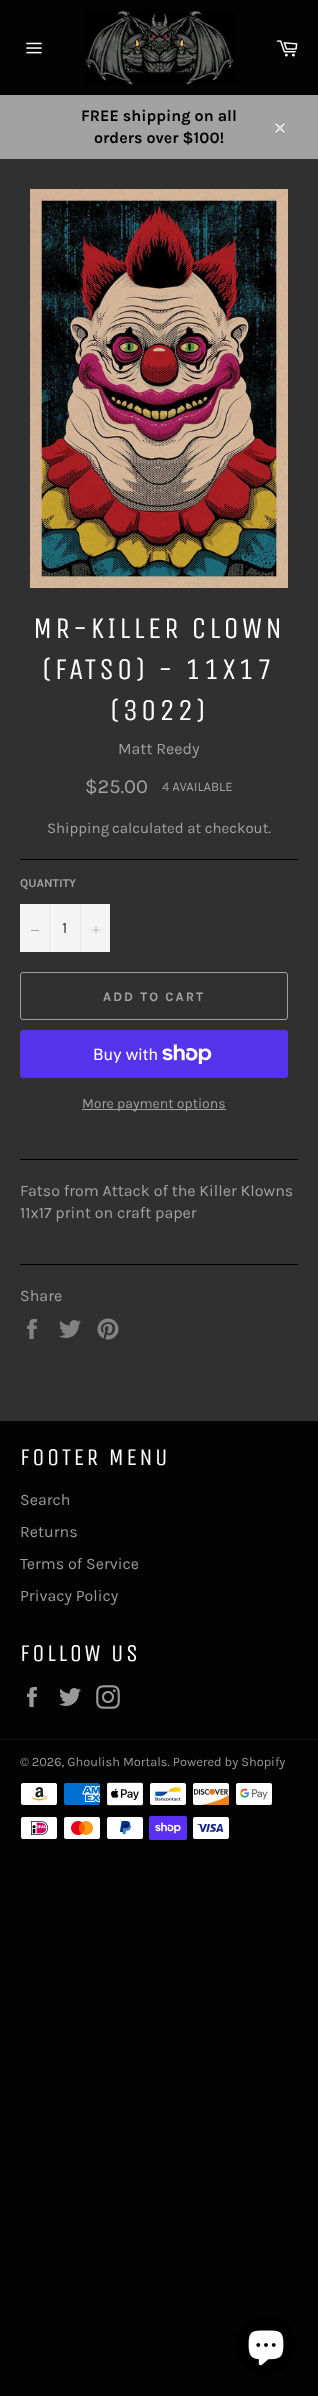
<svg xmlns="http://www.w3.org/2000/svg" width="318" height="2396">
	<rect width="100%" height="100%" fill="#030303" />
	<image x="26" y="42" width="16" height="12" href="assets/img1.png" />
	<image x="85" y="10" width="149" height="75" href="assets/img2.png" />
	<image x="276" y="40" width="22" height="17" href="assets/img3.png" />
	<rect x="0" y="95" width="318" height="64" fill="#A2A2A2" />
	<g font-family="Karla" font-size="16" font-weight="700" fill="#000000">
		<text x="81" y="121">FREE shipping on all</text>
		<text x="94" y="143">orders over $100!</text>
	</g>
	<image x="275" y="123" width="10" height="10" href="assets/img4.png" />
	<rect x="0" y="159" width="318" height="1262" fill="#303030" />
	<image x="30" y="189" width="258" height="399" href="assets/img5.png" />
	<g font-family="Unica One" font-size="30" letter-spacing="3" fill="#FFFFFF">
		<text x="33" y="638">MR-KILLER CLOWN</text>
		<text x="42" y="679">(FATSO) - 11X17</text>
		<text x="110" y="720">(3022)</text>
	</g>
	<text x="118" y="754" font-family="Karla" font-size="16" fill="#A2A2A2">Matt Reedy</text>
	<text x="85" y="793" font-family="Karla" font-size="20" fill="#A2A2A2">$25.00</text>
	<text x="162" y="791" font-family="Karla" font-size="13" fill="#A2A2A2">4 AVAILABLE</text>
	<g font-family="Karla" font-size="15" fill="#A2A2A2">
		<text x="47" y="833">Shipping</text>
		<text x="112" y="833">calculated at checkout.</text>
	</g>
	<rect x="20" y="859" width="278" height="1" fill="#000000" />
	<text x="20" y="887" font-family="Karla" font-size="12" font-weight="700" fill="#A2A2A2">QUANTITY</text>
	<rect x="20" y="904" width="90" height="48" fill="#F4F4F4" />
	<rect x="49" y="904" width="1" height="48" fill="#E7E7E7" />
	<rect x="31" y="930" width="8" height="1" fill="#A6A6A6" />
	<text x="62" y="933" font-family="Karla" font-size="16" fill="#333333">1</text>
	<rect x="80" y="904" width="1" height="48" fill="#E7E7E7" />
	<image x="92" y="926" width="8" height="8" href="assets/img6.png" />
	<rect x="20.5" y="972.5" width="267" height="47" rx="2.5" fill="none" stroke="#A2A2A2" />
	<text x="103" y="1001" font-family="Karla" font-size="13" font-weight="700" letter-spacing="2" fill="#A2A2A2">ADD TO CART</text>
	<rect x="20" y="1030" width="268" height="48" rx="3" fill="#5433EB" />
	<text x="93" y="1060" font-family="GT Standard" font-size="16" fill="#FFFFFF">Buy with</text>
	<image x="162" y="1044" width="50" height="20" href="assets/img7.png" />
	<rect x="82" y="1109" width="144" height="1" fill="#A2A2A2" />
	<text x="82" y="1108" font-family="Karla" font-size="14" fill="#A2A2A2">More payment options</text>
	<rect x="20" y="1159" width="278" height="1" fill="#000000" />
	<g font-family="Karla" font-size="16" fill="#A2A2A2">
		<text x="20" y="1196">Fatso from Attack of the Killer Klowns</text>
		<text x="20" y="1218">11x17 print on craft paper</text>
	</g>
	<rect x="20" y="1264" width="278" height="1" fill="#000000" />
	<text x="20" y="1301" font-family="Karla" font-size="16" fill="#A2A2A2">Share</text>
	<image x="27" y="1319" width="10" height="20" href="assets/img8.png" />
	<image x="59" y="1320" width="22" height="18" href="assets/img9.png" />
	<image x="97" y="1318" width="22" height="22" href="assets/img10.png" />
	<text x="20" y="1465" font-family="Unica One" font-size="24" letter-spacing="2.4" fill="#FFFFFF">FOOTER MENU</text>
	<g font-family="Karla" font-size="16" fill="#9A9A9A">
		<text x="20" y="1505">Search</text>
		<text x="20" y="1537">Returns</text>
		<text x="20" y="1569">Terms of Service</text>
		<text x="20" y="1601">Privacy Policy</text>
	</g>
	<text x="20" y="1661" font-family="Unica One" font-size="24" letter-spacing="2.4" fill="#FFFFFF">FOLLOW US</text>
	<image x="27" y="1687" width="10" height="20" href="assets/img11.png" />
	<image x="59" y="1688" width="22" height="18" href="assets/img12.png" />
	<image x="96" y="1685" width="24" height="24" href="assets/img13.png" />
	<rect x="0" y="1739" width="318" height="1" fill="#101010" />
	<text x="20" y="1766" font-family="Karla" font-size="12.8" fill="#9A9A9A">© 2026, Ghoulish Mortals. Powered by Shopify</text>
	<image x="21" y="1783" width="36" height="22" href="assets/img14.png" />
	<image x="64" y="1783" width="36" height="22" href="assets/img15.png" />
	<image x="107" y="1782" width="36" height="24" href="assets/img16.png" />
	<image x="150" y="1783" width="36" height="22" href="assets/img17.png" />
	<image x="193" y="1783" width="37" height="22" href="assets/img18.png" />
	<image x="236" y="1783" width="36" height="22" href="assets/img19.png" />
	<image x="21" y="1817" width="36" height="22" href="assets/img20.png" />
	<image x="64" y="1817" width="36" height="22" href="assets/img21.png" />
	<image x="107" y="1817" width="36" height="22" href="assets/img22.png" />
	<image x="149" y="1816" width="38" height="24" href="assets/img23.png" />
	<image x="193" y="1817" width="36" height="22" href="assets/img24.png" />
	<circle cx="266" cy="2345" r="30" fill="#000000" />
	<image x="248" y="2330" width="36" height="36" href="assets/img25.png" />
</svg>
